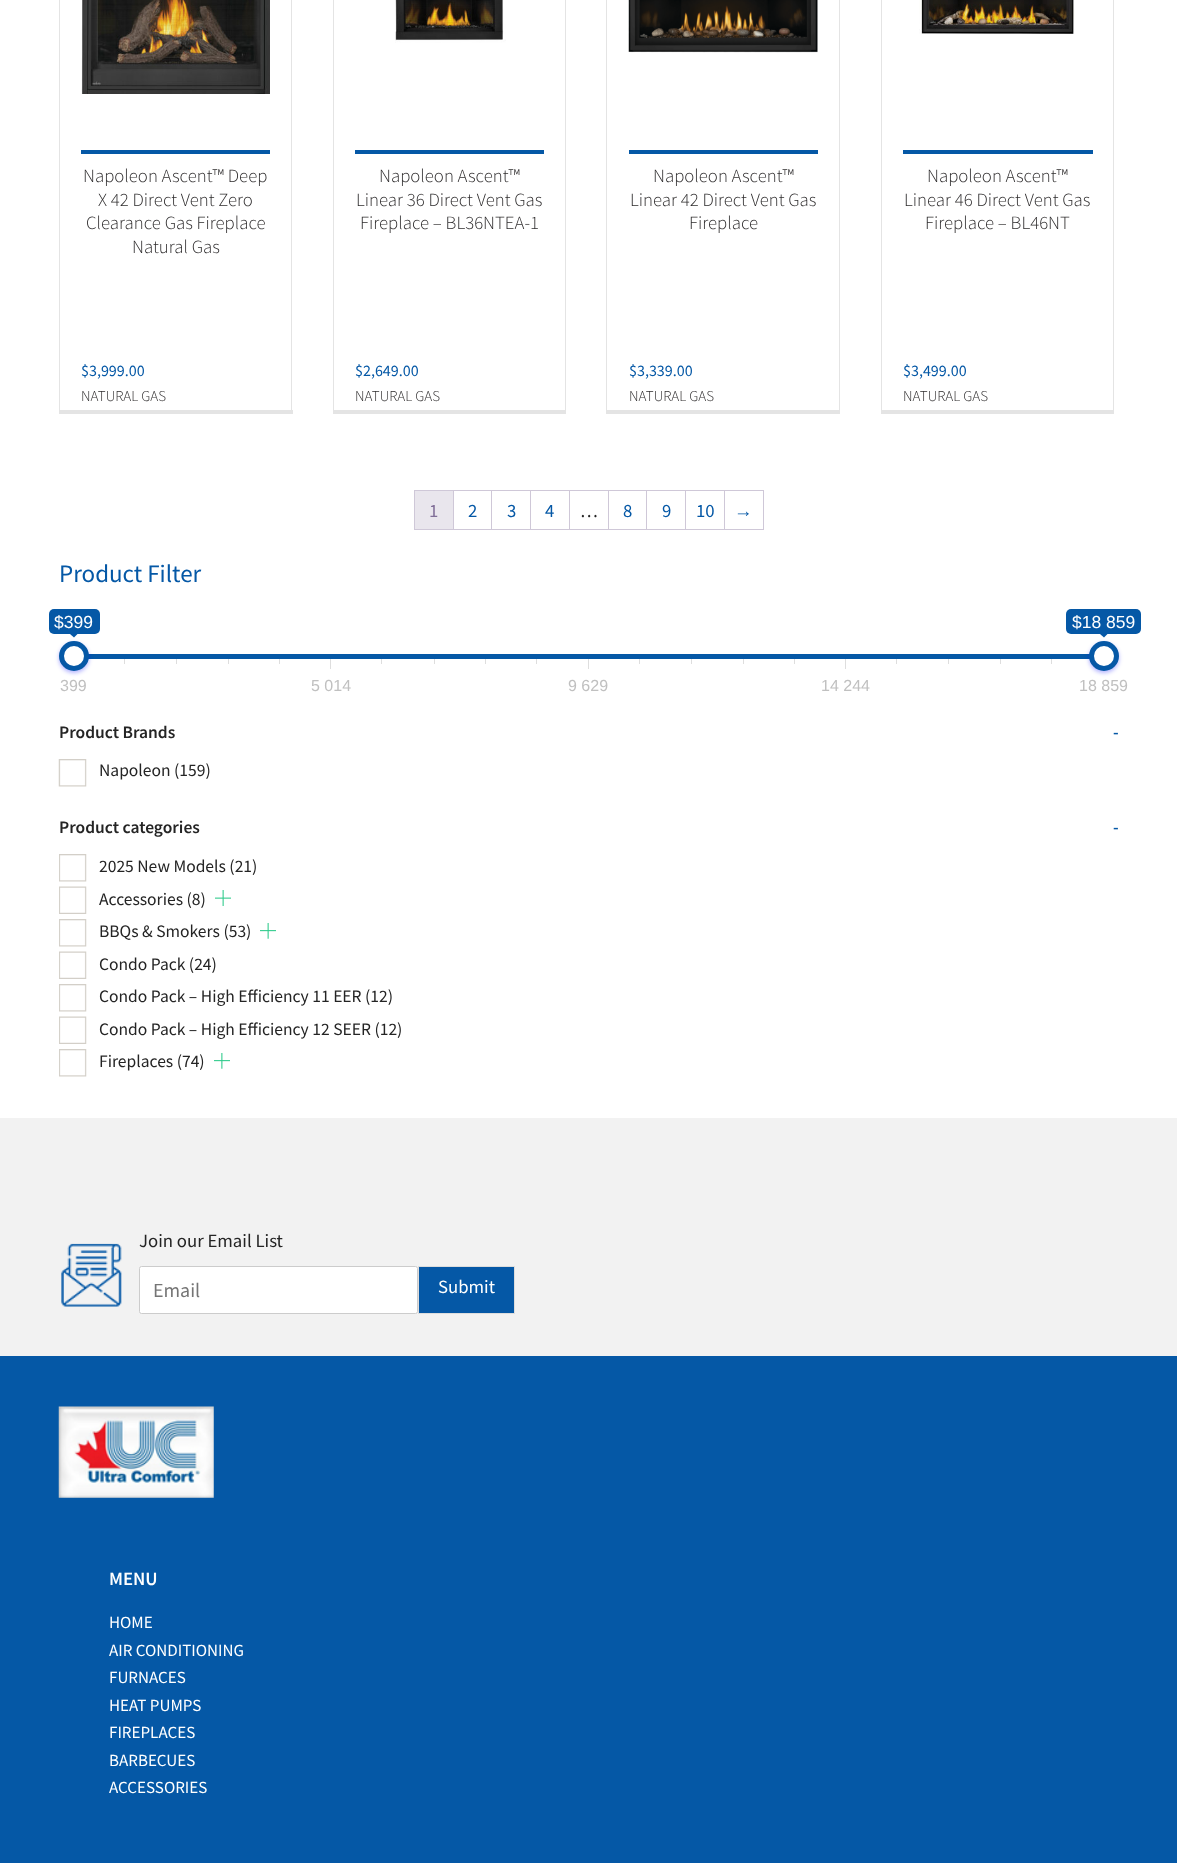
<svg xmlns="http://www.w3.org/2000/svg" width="1177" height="1863">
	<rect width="100%" height="100%" fill="#FFFFFF" />
	<rect x="291" y="0" width="1" height="414" fill="#E4E4E4" />
	<rect x="59" y="410" width="234" height="4" fill="#E4E4E4" />
	<rect x="59" y="0" width="1" height="414" fill="#E4E4E4" />
	<image x="81" y="0" width="189" height="94" href="assets/img1.png" />
	<rect x="81" y="150" width="189" height="4" fill="#0558A6" />
	<g font-family="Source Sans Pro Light" font-size="18.75" font-weight="300" fill="#2E2C2D">
		<text x="83" y="182">Napoleon Ascent™ Deep</text>
		<text x="98" y="206">X 42 Direct Vent Zero</text>
		<text x="86" y="229">Clearance Gas Fireplace</text>
		<text x="132" y="253">Natural Gas</text>
	</g>
	<text x="81" y="376" font-family="Source Sans Pro" font-size="16" fill="#0558A6">$3,999.00</text>
	<text x="81" y="401" font-family="Source Sans Pro Light" font-size="15" font-weight="300" fill="#2E2C2D">NATURAL GAS</text>
	<rect x="565" y="0" width="1" height="414" fill="#E4E4E4" />
	<rect x="333" y="410" width="233" height="4" fill="#E4E4E4" />
	<rect x="333" y="0" width="1" height="414" fill="#E4E4E4" />
	<image x="395" y="0" width="111" height="43" href="assets/img2.png" />
	<rect x="355" y="150" width="189" height="4" fill="#0558A6" />
	<g font-family="Source Sans Pro Light" font-size="18.75" font-weight="300" fill="#2E2C2D">
		<text x="379" y="182">Napoleon Ascent™</text>
		<text x="356" y="206">Linear 36 Direct Vent Gas</text>
		<text x="360" y="229">Fireplace – BL36NTEA-1</text>
	</g>
	<text x="355" y="376" font-family="Source Sans Pro" font-size="16" fill="#0558A6">$2,649.00</text>
	<text x="355" y="401" font-family="Source Sans Pro Light" font-size="15" font-weight="300" fill="#2E2C2D">NATURAL GAS</text>
	<rect x="839" y="0" width="1" height="414" fill="#E4E4E4" />
	<rect x="606" y="410" width="234" height="4" fill="#E4E4E4" />
	<rect x="606" y="0" width="1" height="414" fill="#E4E4E4" />
	<image x="628" y="0" width="190" height="53" href="assets/img3.png" />
	<rect x="629" y="150" width="189" height="4" fill="#0558A6" />
	<g font-family="Source Sans Pro Light" font-size="18.75" font-weight="300" fill="#2E2C2D">
		<text x="653" y="182">Napoleon Ascent™</text>
		<text x="630" y="206">Linear 42 Direct Vent Gas</text>
		<text x="689" y="229">Fireplace</text>
	</g>
	<text x="629" y="376" font-family="Source Sans Pro" font-size="16" fill="#0558A6">$3,339.00</text>
	<text x="629" y="401" font-family="Source Sans Pro Light" font-size="15" font-weight="300" fill="#2E2C2D">NATURAL GAS</text>
	<rect x="1113" y="0" width="1" height="414" fill="#E4E4E4" />
	<rect x="881" y="410" width="233" height="4" fill="#E4E4E4" />
	<rect x="881" y="0" width="1" height="414" fill="#E4E4E4" />
	<image x="919" y="0" width="156" height="34" href="assets/img4.png" />
	<rect x="903" y="150" width="190" height="4" fill="#0558A6" />
	<g font-family="Source Sans Pro Light" font-size="18.75" font-weight="300" fill="#2E2C2D">
		<text x="927" y="182">Napoleon Ascent™</text>
		<text x="904" y="206">Linear 46 Direct Vent Gas</text>
		<text x="925" y="229">Fireplace – BL46NT</text>
	</g>
	<text x="903" y="376" font-family="Source Sans Pro" font-size="16" fill="#0558A6">$3,499.00</text>
	<text x="903" y="401" font-family="Source Sans Pro Light" font-size="15" font-weight="300" fill="#2E2C2D">NATURAL GAS</text>
	<rect x="414" y="490" width="350" height="1" fill="#CFC8D8" />
	<rect x="414" y="529" width="350" height="1" fill="#CFC8D8" />
	<rect x="414" y="490" width="1" height="40" fill="#CFC8D8" />
	<rect x="453" y="491" width="1" height="38" fill="#CFC8D8" />
	<rect x="415" y="491" width="38" height="38" fill="#E9E6ED" />
	<text x="429" y="517" font-family="Source Sans Pro" font-size="18.75" fill="#816F98">1</text>
	<rect x="491" y="491" width="1" height="38" fill="#CFC8D8" />
	<text x="468" y="517" font-family="Source Sans Pro" font-size="18.75" fill="#0558A6">2</text>
	<rect x="530" y="491" width="1" height="38" fill="#CFC8D8" />
	<text x="507" y="517" font-family="Source Sans Pro" font-size="18.75" fill="#0558A6">3</text>
	<rect x="569" y="491" width="1" height="38" fill="#CFC8D8" />
	<text x="545" y="517" font-family="Source Sans Pro" font-size="18.75" fill="#0558A6">4</text>
	<rect x="608" y="491" width="1" height="38" fill="#CFC8D8" />
	<text x="580" y="517" font-family="Source Sans Pro" font-size="18.75" fill="#242424">…</text>
	<rect x="646" y="491" width="1" height="38" fill="#CFC8D8" />
	<text x="623" y="517" font-family="Source Sans Pro" font-size="18.75" fill="#0558A6">8</text>
	<rect x="685" y="491" width="1" height="38" fill="#CFC8D8" />
	<text x="662" y="517" font-family="Source Sans Pro" font-size="18.75" fill="#0558A6">9</text>
	<rect x="724" y="491" width="1" height="38" fill="#CFC8D8" />
	<text x="696" y="517" font-family="Source Sans Pro" font-size="18.75" fill="#0558A6">10</text>
	<rect x="763" y="491" width="1" height="38" fill="#CFC8D8" />
	<text x="734" y="517" font-family="Liberation Sans" font-size="18.75" fill="#0558A6">→</text>
	<text x="59" y="582" font-family="Source Sans Pro" font-size="25" fill="#0558A6">Product Filter</text>
	<rect x="49" y="609" width="51" height="25" rx="5" fill="#0558A6" />
	<text x="54" y="628" font-family="Liberation Sans" font-size="17.5" fill="#FFFFFF">$399</text>
	<path d="M70 634H77.5L74 637.5Z" fill="#0558A6" />
	<rect x="1066" y="609" width="75" height="25" rx="5" fill="#0558A6" />
	<text x="1072" y="628" font-family="Liberation Sans" font-size="17.5" fill="#FFFFFF">$18 859</text>
	<path d="M1100 634H1107.5L1104 637.5Z" fill="#0558A6" />
	<rect x="88" y="654" width="1002" height="5" fill="#0558A6" />
	<rect x="59" y="643" width="30" height="30" rx="15" fill="#0000FF" fill-opacity="0.3" filter="blur(2px)" />
	<circle cx="74" cy="656" r="12.5" fill="#FFFFFF" stroke="#0558A6" stroke-width="5" />
	<rect x="1089" y="643" width="30" height="30" rx="15" fill="#0000FF" fill-opacity="0.3" filter="blur(2px)" />
	<circle cx="1104" cy="656" r="12.5" fill="#FFFFFF" stroke="#0558A6" stroke-width="5" />
	<rect x="124" y="659" width="1" height="5" fill="#DEDEDE" />
	<rect x="176" y="659" width="1" height="5" fill="#DEDEDE" />
	<rect x="228" y="659" width="1" height="5" fill="#DEDEDE" />
	<rect x="279" y="659" width="1" height="5" fill="#DEDEDE" />
	<rect x="330" y="659" width="1" height="10" fill="#DEDEDE" />
	<rect x="381" y="659" width="1" height="5" fill="#DEDEDE" />
	<rect x="434" y="659" width="1" height="5" fill="#DEDEDE" />
	<rect x="485" y="659" width="1" height="5" fill="#DEDEDE" />
	<rect x="536" y="659" width="1" height="5" fill="#DEDEDE" />
	<rect x="588" y="659" width="1" height="10" fill="#DEDEDE" />
	<rect x="639" y="659" width="1" height="5" fill="#DEDEDE" />
	<rect x="691" y="659" width="1" height="5" fill="#DEDEDE" />
	<rect x="743" y="659" width="1" height="5" fill="#DEDEDE" />
	<rect x="794" y="659" width="1" height="5" fill="#DEDEDE" />
	<rect x="845" y="659" width="1" height="10" fill="#DEDEDE" />
	<rect x="896" y="659" width="1" height="5" fill="#DEDEDE" />
	<rect x="948" y="659" width="1" height="5" fill="#DEDEDE" />
	<rect x="1000" y="659" width="1" height="5" fill="#DEDEDE" />
	<rect x="1051" y="659" width="1" height="5" fill="#DEDEDE" />
	<g font-family="Liberation Sans" font-size="16" fill="#C0C0C0">
		<text x="60" y="691">399</text>
		<text x="311" y="691">5 014</text>
		<text x="568" y="691">9 629</text>
		<text x="821" y="691">14 244</text>
		<text x="1079" y="691">18 859</text>
	</g>
	<text x="59" y="738" font-family="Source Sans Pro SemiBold" font-size="17.5" font-weight="600" fill="#242424">Product Brands</text>
	<text x="1113" y="738" font-family="Source Sans Pro SemiBold" font-size="17.5" font-weight="600" fill="#0558A6">-</text>
	<image x="58" y="759" width="29" height="28" href="assets/img5.png" />
	<text x="99" y="776" font-family="Source Sans Pro" font-size="17.5" fill="#242424">Napoleon (159)</text>
	<text x="59" y="833" font-family="Source Sans Pro SemiBold" font-size="17.5" font-weight="600" fill="#242424">Product categories</text>
	<text x="1113" y="833" font-family="Source Sans Pro SemiBold" font-size="17.5" font-weight="600" fill="#0558A6">-</text>
	<image x="59" y="854" width="28" height="28" href="assets/img6.png" />
	<text x="99" y="872" font-family="Source Sans Pro" font-size="17.5" fill="#242424">2025 New Models (21)</text>
	<image x="59" y="886" width="28" height="28" href="assets/img7.png" />
	<text x="99" y="905" font-family="Source Sans Pro" font-size="17.5" fill="#242424">Accessories (8)</text>
	<image x="215" y="890" width="16" height="16" href="assets/img8.png" />
	<image x="59" y="919" width="28" height="28" href="assets/img6.png" />
	<text x="99" y="937" font-family="Source Sans Pro" font-size="17.5" fill="#242424">BBQs &amp; Smokers (53)</text>
	<image x="260" y="923" width="16" height="16" href="assets/img9.png" />
	<image x="59" y="951" width="28" height="28" href="assets/img7.png" />
	<text x="99" y="970" font-family="Source Sans Pro" font-size="17.5" fill="#242424">Condo Pack (24)</text>
	<image x="59" y="984" width="28" height="28" href="assets/img6.png" />
	<text x="99" y="1002" font-family="Source Sans Pro" font-size="17.5" fill="#242424">Condo Pack – High Efficiency 11 EER (12)</text>
	<image x="59" y="1016" width="28" height="28" href="assets/img7.png" />
	<text x="99" y="1035" font-family="Source Sans Pro" font-size="17.5" fill="#242424">Condo Pack – High Efficiency 12 SEER (12)</text>
	<image x="59" y="1049" width="28" height="28" href="assets/img6.png" />
	<text x="99" y="1067" font-family="Source Sans Pro" font-size="17.5" fill="#242424">Fireplaces (74)</text>
	<image x="214" y="1053" width="16" height="16" href="assets/img10.png" />
	<rect x="0" y="1118" width="1177" height="238" fill="#F2F2F2" />
	<text x="139" y="1247" font-family="Source Sans Pro" font-size="18.75" fill="#242424">Join our Email List</text>
	<image x="61" y="1243" width="61" height="64" href="assets/img11.png" />
	<rect x="139.5" y="1266.5" width="278" height="47" rx="2" fill="#FFFFFF" stroke="#CCCCCC" />
	<text x="153" y="1297" font-family="Source Sans Pro" font-size="20" fill="#757575">Email</text>
	<rect x="418.5" y="1266.5" width="96" height="47" fill="#0558A6" stroke="#DDDDDD" />
	<text x="438" y="1293" font-family="Source Sans Pro" font-size="18.75" fill="#FFFFFF">Submit</text>
	<rect x="0" y="1356" width="1177" height="507" fill="#0558A6" />
	<image x="58" y="1406" width="156" height="92" href="assets/img12.png" />
	<text x="109" y="1585" font-family="Source Sans Pro SemiBold" font-size="18.75" font-weight="600" fill="#FFFFFF">MENU</text>
	<g font-family="Source Sans Pro" font-size="17" fill="#FFFFFF">
		<text x="109" y="1628">HOME</text>
		<text x="109" y="1656">AIR CONDITIONING</text>
		<text x="109" y="1683">FURNACES</text>
		<text x="109" y="1711">HEAT PUMPS</text>
		<text x="109" y="1738">FIREPLACES</text>
		<text x="109" y="1766">BARBECUES</text>
		<text x="109" y="1793">ACCESSORIES</text>
	</g>
</svg>
